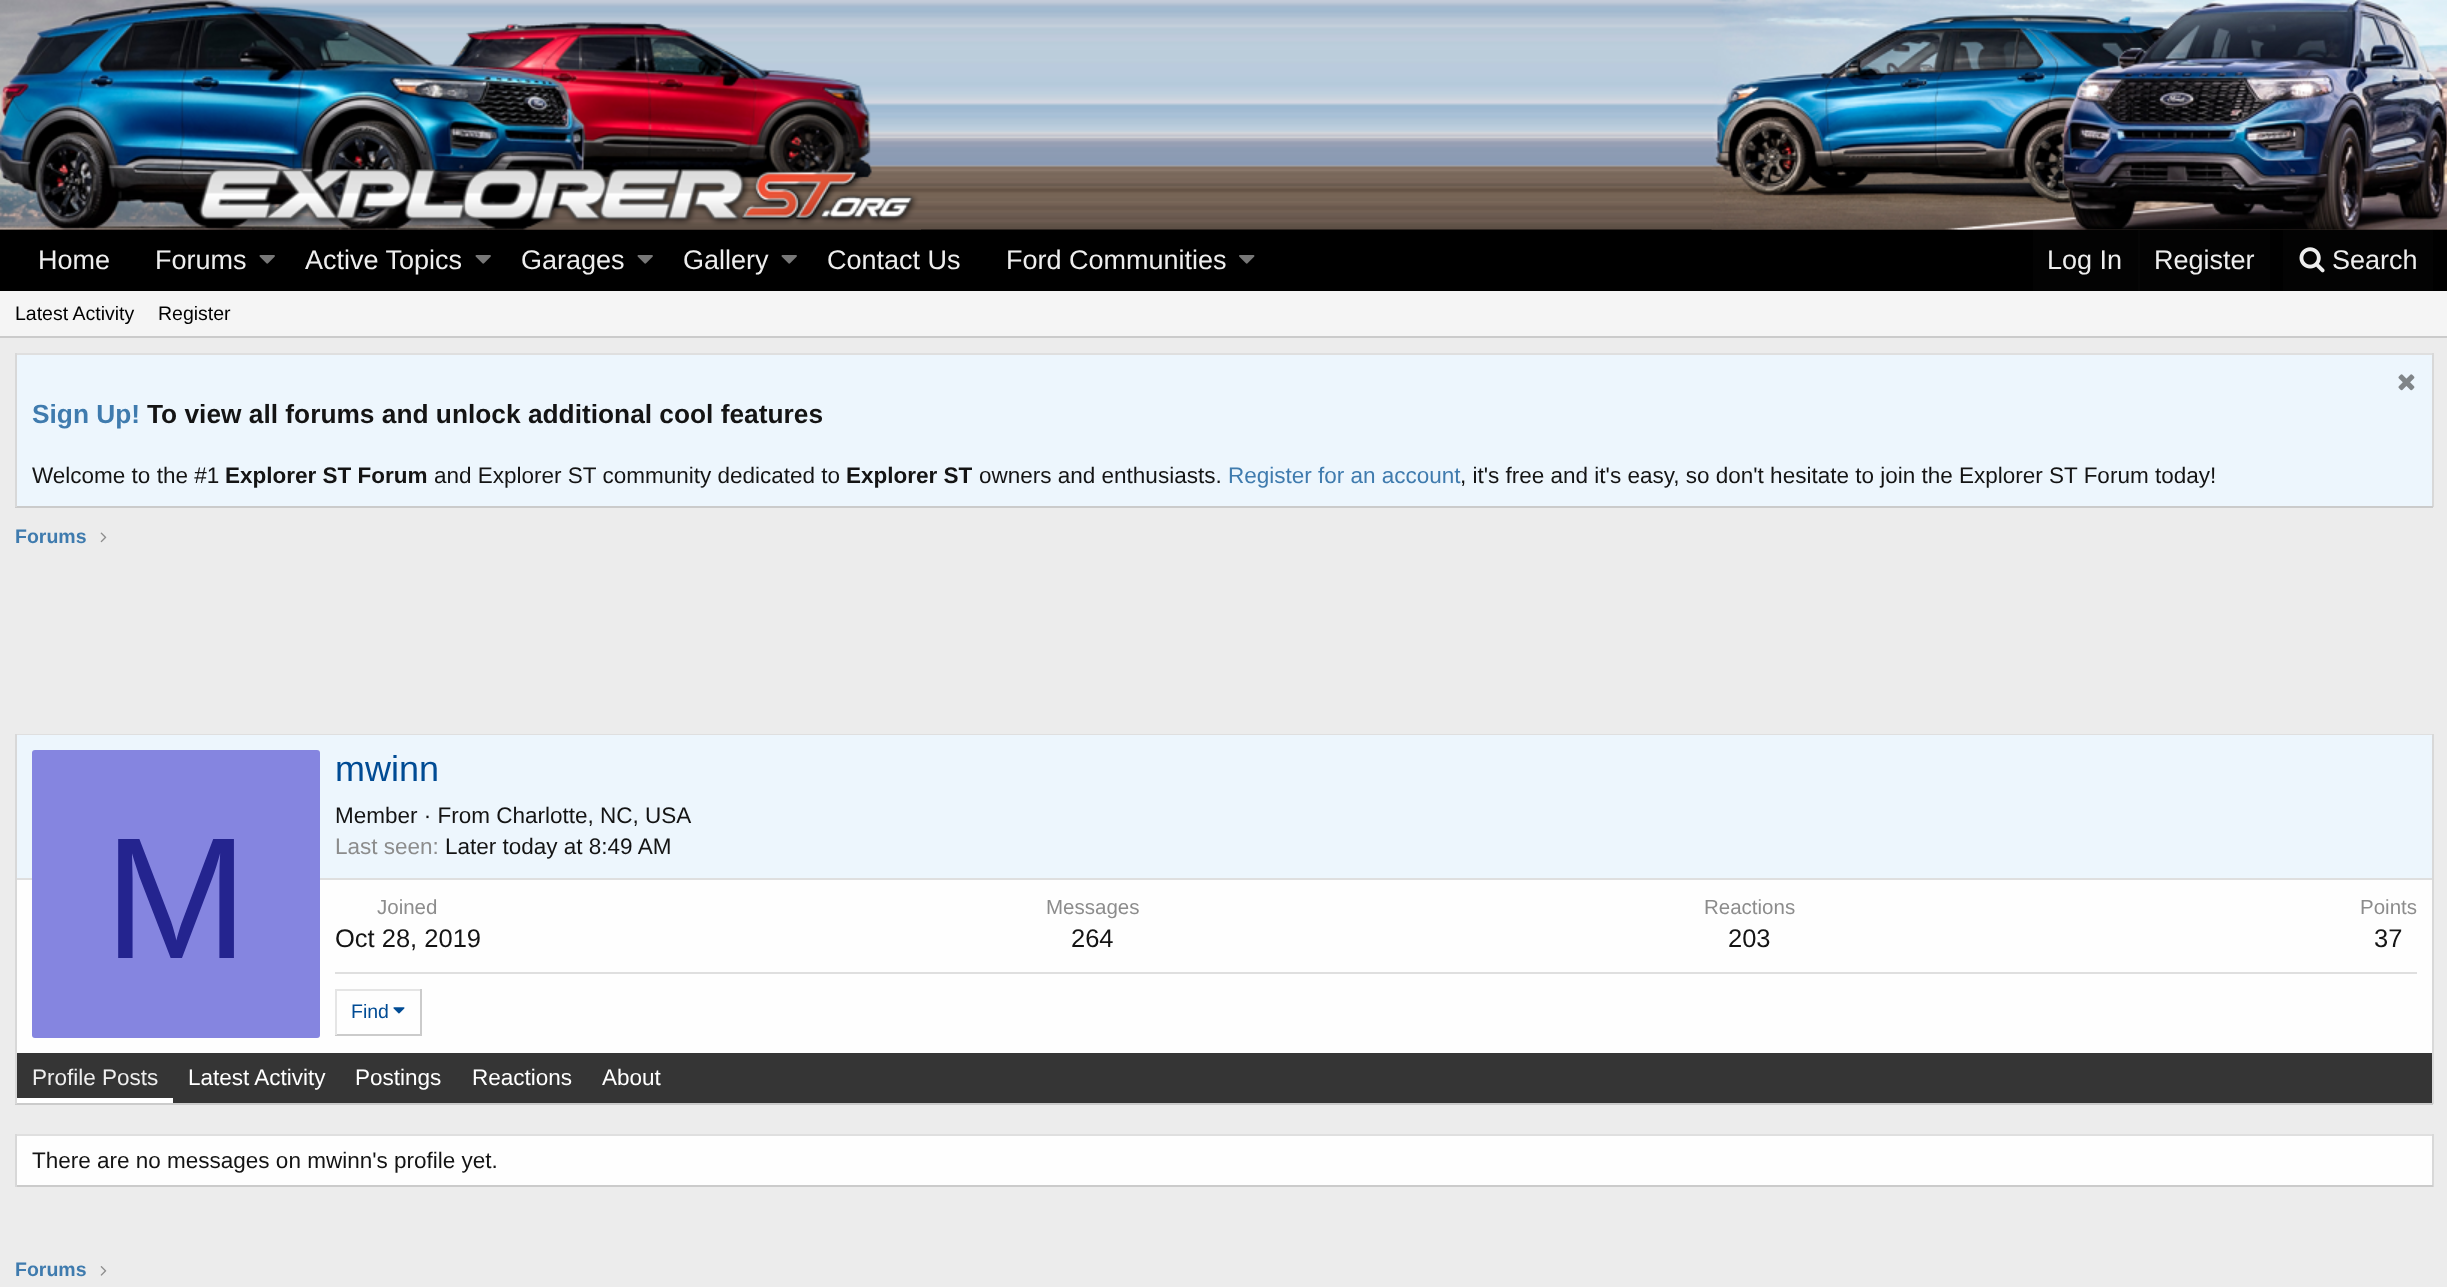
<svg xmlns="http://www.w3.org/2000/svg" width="2447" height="1287">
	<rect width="100%" height="100%" fill="#ECECEC" />
	<rect x="0" y="229" width="2447" height="62" fill="#000000" />
	<image x="0" y="0" width="2447" height="230" href="assets/img1.png" />
	<image x="0" y="0" width="921" height="230" href="assets/img2.png" />
	<image x="1711" y="0" width="736" height="230" href="assets/img3.png" />
	<g font-family="Liberation Sans" font-size="27" fill="#EEEEEE">
		<text x="38" y="269">Home</text>
		<text x="155" y="269">Forums</text>
	</g>
	<image x="259" y="255" width="16" height="9" href="assets/img4.png" />
	<text x="305" y="269" font-family="Liberation Sans" font-size="27" fill="#EEEEEE">Active Topics</text>
	<image x="475" y="255" width="16" height="9" href="assets/img4.png" />
	<text x="521" y="269" font-family="Liberation Sans" font-size="27" fill="#EEEEEE">Garages</text>
	<image x="637" y="255" width="16" height="9" href="assets/img4.png" />
	<text x="683" y="269" font-family="Liberation Sans" font-size="27" fill="#EEEEEE">Gallery</text>
	<image x="781" y="255" width="16" height="9" href="assets/img4.png" />
	<g font-family="Liberation Sans" font-size="27" fill="#EEEEEE">
		<text x="827" y="269">Contact Us</text>
		<text x="1006" y="269">Ford Communities</text>
	</g>
	<image x="1239" y="255" width="16" height="9" href="assets/img5.png" />
	<rect x="2033" y="230" width="237" height="61" fill="#030303" />
	<text x="2047" y="269" font-family="Liberation Sans" font-size="27" fill="#EEEEEE">Log In</text>
	<rect x="2138" y="230" width="2" height="61" fill="#060606" />
	<text x="2154" y="269" font-family="Liberation Sans" font-size="27" fill="#EEEEEE">Register</text>
	<rect x="2283" y="230" width="150" height="61" fill="#030303" />
	<image x="2299" y="247" width="26" height="26" href="assets/img6.png" />
	<text x="2332" y="269" font-family="Liberation Sans" font-size="27" fill="#EEEEEE">Search</text>
	<rect x="0" y="291" width="2447" height="45" fill="#F5F5F5" />
	<rect x="0" y="336" width="2447" height="2" fill="#CBCBCB" />
	<g font-family="Liberation Sans" font-size="19.5" fill="#000000">
		<text x="15" y="320">Latest Activity</text>
		<text x="158" y="320">Register</text>
	</g>
	<rect x="17" y="355" width="2415" height="151" fill="#EDF6FD" />
	<rect x="15" y="353" width="2418" height="2" fill="#DFDFDF" />
	<rect x="2432" y="353" width="2" height="154" fill="#D8D8D8" />
	<rect x="15" y="506" width="2418" height="2" fill="#CBCBCB" />
	<rect x="15" y="353" width="2" height="154" fill="#D8D8D8" />
	<image x="2398" y="374" width="17" height="17" href="assets/img7.png" />
	<text x="32" y="423" font-family="Liberation Sans" font-size="26.3" font-weight="700" fill="#3F7BAE">Sign Up!</text>
	<text x="147" y="423" font-family="Liberation Sans" font-size="26.3" font-weight="700" fill="#141414">To view all forums and unlock additional cool features</text>
	<text x="32" y="483" font-family="Liberation Sans" font-size="22.5" fill="#141414">Welcome to the #1</text>
	<text x="225" y="483" font-family="Liberation Sans" font-size="22.5" font-weight="700" fill="#141414">Explorer ST Forum</text>
	<text x="434" y="483" font-family="Liberation Sans" font-size="22.5" fill="#141414">and Explorer ST community dedicated to</text>
	<text x="846" y="483" font-family="Liberation Sans" font-size="22.5" font-weight="700" fill="#141414">Explorer ST</text>
	<text x="979" y="483" font-family="Liberation Sans" font-size="22.5" fill="#141414">owners and enthusiasts.</text>
	<text x="1228" y="483" font-family="Liberation Sans" font-size="22.5" fill="#3F7BAE">Register for an account</text>
	<text x="1460" y="483" font-family="Liberation Sans" font-size="22.5" fill="#141414">, it's free and it's easy, so don't hesitate to join the Explorer ST Forum today!</text>
	<text x="15" y="543" font-family="Liberation Sans" font-size="19.5" font-weight="700" fill="#3F7BAE">Forums</text>
	<image x="100" y="532" width="7" height="11" href="assets/img8.png" />
	<rect x="17" y="880" width="2415" height="173" fill="#FEFEFE" />
	<rect x="15" y="734" width="2418" height="1" fill="#DFDFDF" />
	<rect x="2432" y="734" width="2" height="370" fill="#D8D8D8" />
	<rect x="15" y="1103" width="2418" height="2" fill="#CBCBCB" />
	<rect x="15" y="734" width="2" height="370" fill="#D8D8D8" />
	<rect x="17" y="735" width="2415" height="143" fill="#EDF6FD" />
	<rect x="17" y="878" width="2415" height="2" fill="#DFDFDF" />
	<text x="335" y="781" font-family="Liberation Sans" font-size="36" fill="#004B94">mwinn</text>
	<text x="335" y="823" font-family="Liberation Sans" font-size="22.5" fill="#141414">Member · From Charlotte, NC, USA</text>
	<text x="335" y="854" font-family="Liberation Sans" font-size="22.5" fill="#8C8C8C">Last seen:</text>
	<text x="445" y="854" font-family="Liberation Sans" font-size="22.5" fill="#141414">Later today at 8:49 AM</text>
	<rect x="32" y="750" width="288" height="288" rx="3" fill="#8585E0" />
	<text x="104" y="958" font-family="Liberation Sans" font-size="173" fill="#24248F">M</text>
	<text x="377" y="914" font-family="Liberation Sans" font-size="20.5" fill="#8C8C8C">Joined</text>
	<text x="335" y="947" font-family="Liberation Sans" font-size="25.5" fill="#141414">Oct 28, 2019</text>
	<text x="1046" y="914" font-family="Liberation Sans" font-size="20.5" fill="#8C8C8C">Messages</text>
	<text x="1071" y="947" font-family="Liberation Sans" font-size="25.5" fill="#141414">264</text>
	<text x="1704" y="914" font-family="Liberation Sans" font-size="20.5" fill="#8C8C8C">Reactions</text>
	<text x="1728" y="947" font-family="Liberation Sans" font-size="25.5" fill="#141414">203</text>
	<text x="2360" y="914" font-family="Liberation Sans" font-size="20.5" fill="#8C8C8C">Points</text>
	<text x="2374" y="947" font-family="Liberation Sans" font-size="25.5" fill="#141414">37</text>
	<rect x="335" y="972" width="2082" height="2" fill="#DFDFDF" />
	<rect x="335" y="989" width="87" height="2" fill="#E5E5E5" />
	<rect x="420" y="989" width="2" height="46" fill="#CBCBCB" />
	<rect x="335" y="1034" width="87" height="2" fill="#CBCBCB" />
	<rect x="335" y="989" width="2" height="46" fill="#E5E5E5" />
	<text x="351" y="1018" font-family="Liberation Sans" font-size="19.5" fill="#004B94">Find</text>
	<image x="393" y="1007" width="12" height="7" href="assets/img9.png" />
	<rect x="17" y="1053" width="2415" height="50" fill="#353535" />
	<rect x="17" y="1098" width="156" height="5" fill="#FFFFFF" />
	<text x="32" y="1085" font-family="Liberation Sans" font-size="22.5" fill="#EEEEEE">Profile Posts</text>
	<g font-family="Liberation Sans" font-size="22.5" fill="#FFFFFF">
		<text x="188" y="1085">Latest Activity</text>
		<text x="355" y="1085">Postings</text>
		<text x="472" y="1085">Reactions</text>
		<text x="602" y="1085">About</text>
	</g>
	<rect x="17" y="1136" width="2415" height="49" fill="#FEFEFE" />
	<rect x="15" y="1134" width="2418" height="2" fill="#DFDFDF" />
	<rect x="2432" y="1134" width="2" height="53" fill="#D8D8D8" />
	<rect x="15" y="1185" width="2418" height="2" fill="#CBCBCB" />
	<rect x="15" y="1134" width="2" height="53" fill="#D8D8D8" />
	<text x="32" y="1168" font-family="Liberation Sans" font-size="22.5" fill="#141414">There are no messages on mwinn's profile yet.</text>
	<text x="15" y="1276" font-family="Liberation Sans" font-size="19.5" font-weight="700" fill="#3F7BAE">Forums</text>
	<image x="100" y="1266" width="7" height="10" href="assets/img10.png" />
</svg>
